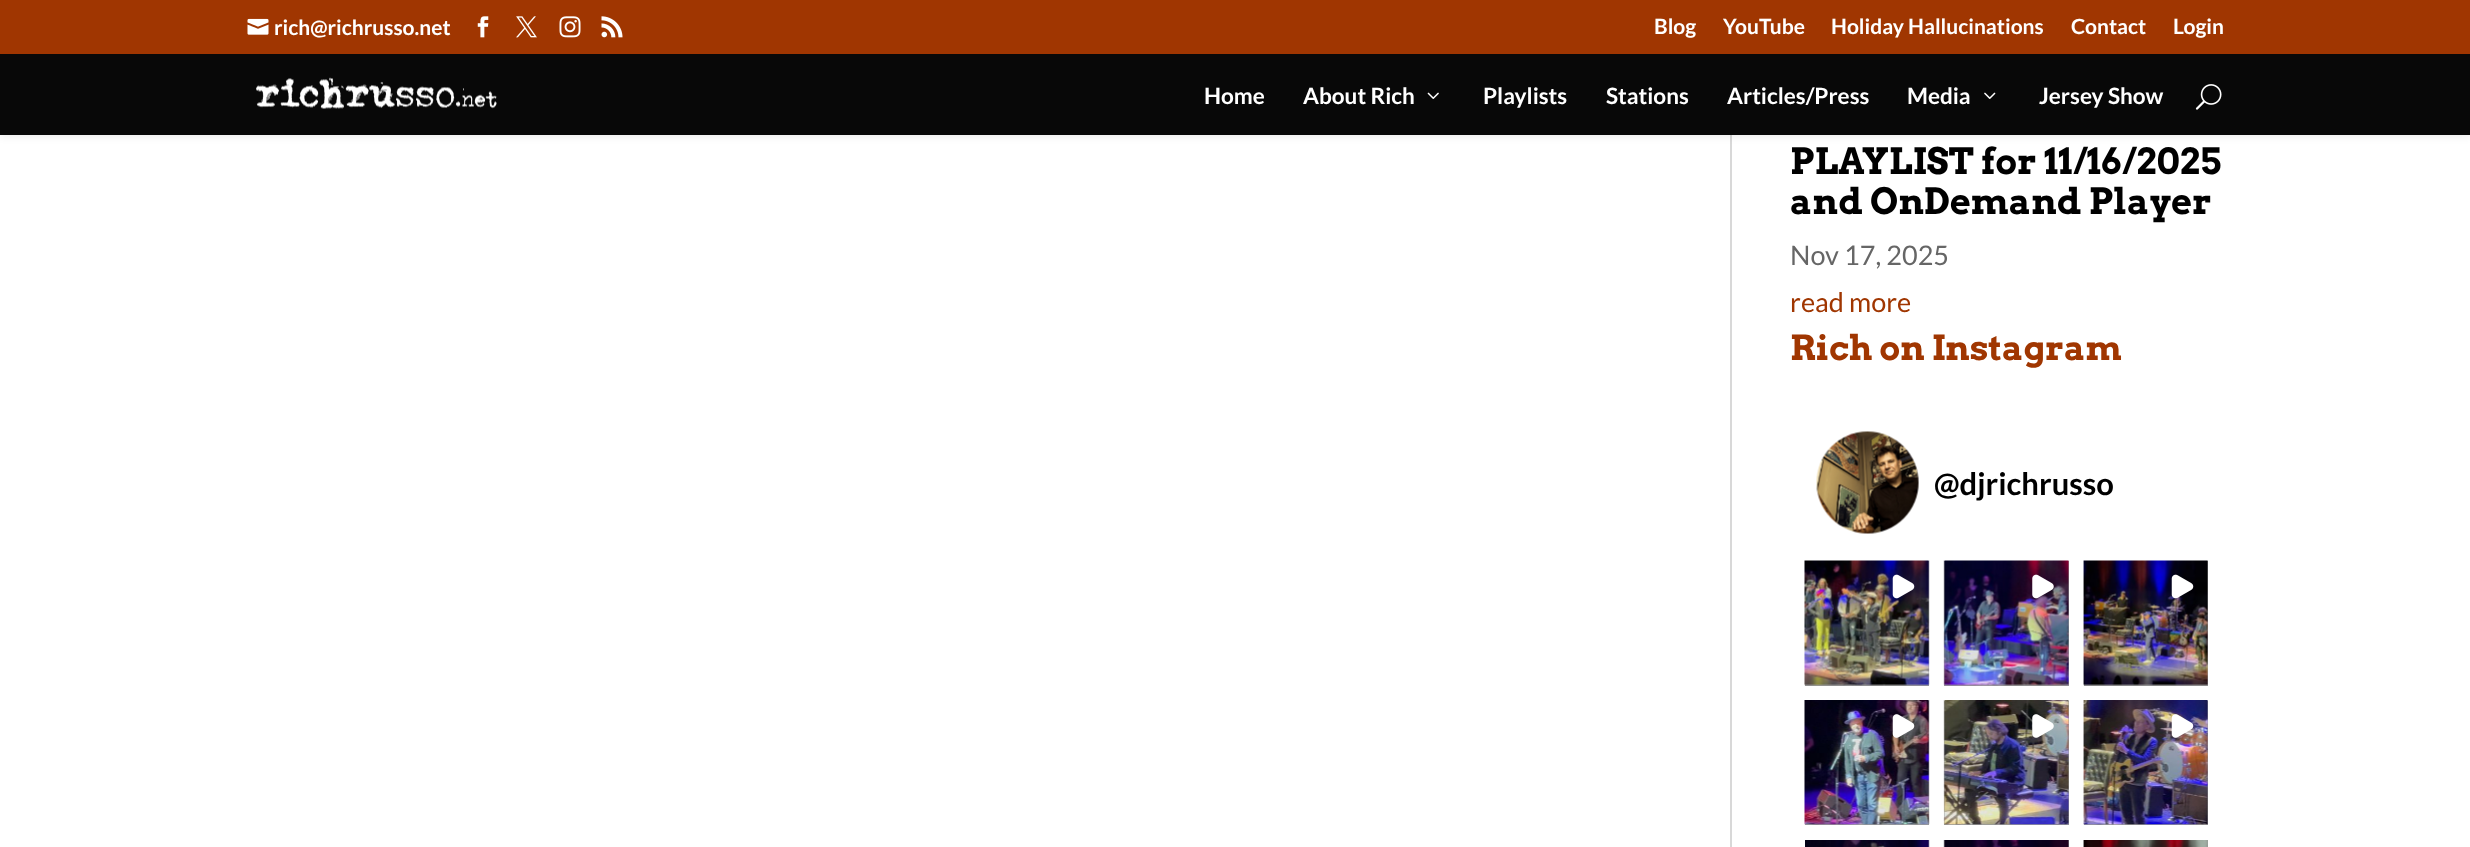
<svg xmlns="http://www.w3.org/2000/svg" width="2470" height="847">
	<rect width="100%" height="100%" fill="#FFFFFF" />
	<rect x="1730" y="135" width="2" height="712" fill="#D8D8D8" />
	<rect x="0" y="54" width="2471" height="81" fill="#000000" fill-opacity="0.1" filter="blur(5px)" />
	<rect x="0" y="0" width="2470" height="54" fill="#A03601" />
	<image x="247" y="18" width="22" height="17" href="assets/img1.png" />
	<text x="274" y="35" font-family="Lato" font-size="21" font-weight="700" fill="#FFFFFF">rich@richrusso.net</text>
	<image x="477" y="16" width="12" height="22" href="assets/img2.png" />
	<image x="516" y="16" width="21" height="22" href="assets/img3.png" />
	<image x="559" y="16" width="22" height="22" href="assets/img4.png" />
	<image x="601" y="16" width="22" height="22" href="assets/img5.png" />
	<g font-family="Lato" font-size="21" font-weight="700" fill="#FFFFFF">
		<text x="1654" y="34">Blog</text>
		<text x="1723" y="34">YouTube</text>
		<text x="1831" y="34">Holiday Hallucinations</text>
		<text x="2071" y="34">Contact</text>
		<text x="2173" y="34">Login</text>
	</g>
	<rect x="0" y="54" width="2470" height="81" fill="#080808" />
	<image x="256" y="77" width="241" height="32" href="assets/img6.png" />
	<g font-family="Lato" font-size="22.5" font-weight="700" fill="#FFFFFF">
		<text x="1204" y="104">Home</text>
		<text x="1303" y="104">About Rich</text>
	</g>
	<image x="1427" y="92" width="12" height="7" href="assets/img7.png" />
	<g font-family="Lato" font-size="22.5" font-weight="700" fill="#FFFFFF">
		<text x="1483" y="104">Playlists</text>
		<text x="1606" y="104">Stations</text>
		<text x="1727" y="104">Articles/Press</text>
		<text x="1907" y="104">Media</text>
	</g>
	<image x="1984" y="92" width="12" height="7" href="assets/img8.png" />
	<text x="2039" y="104" font-family="Lato" font-size="22.5" font-weight="700" fill="#FFFFFF">Jersey Show</text>
	<image x="2195" y="84" width="27" height="26" href="assets/img9.png" />
	<g font-family="Arvo" font-size="36" font-weight="700" fill="#000000">
		<text x="1790" y="174">PLAYLIST for 11/16/2025</text>
		<text x="1790" y="214">and OnDemand Player</text>
	</g>
	<text x="1790" y="265" font-family="Lato" font-size="27" fill="#666666">Nov 17, 2025</text>
	<text x="1790" y="312" font-family="Lato" font-size="27" fill="#A03601">read more</text>
	<text x="1790" y="360" font-family="Arvo" font-size="34.5" font-weight="700" fill="#A03601">Rich on Instagram</text>
	<image x="1816" y="431" width="103" height="103" href="assets/img10.png" />
	<text x="1934" y="495" font-family="Lato" font-size="31" font-weight="700" fill="#000000">@djrichrusso</text>
	<rect x="1805" y="561" width="124" height="125" fill="#999999" />
	<image x="1804" y="560" width="126" height="126" href="assets/img11.png" />
	<image x="1892" y="574" width="23" height="25" href="assets/img12.png" />
	<rect x="1944" y="561" width="125" height="125" fill="#999999" />
	<image x="1943" y="560" width="126" height="126" href="assets/img13.png" />
	<image x="2032" y="574" width="22" height="25" href="assets/img14.png" />
	<rect x="2084" y="561" width="124" height="125" fill="#999999" />
	<image x="2083" y="560" width="125" height="126" href="assets/img15.png" />
	<image x="2171" y="574" width="23" height="25" href="assets/img16.png" />
	<rect x="1805" y="701" width="124" height="124" fill="#999999" />
	<image x="1804" y="700" width="126" height="125" href="assets/img17.png" />
	<image x="1892" y="714" width="23" height="24" href="assets/img18.png" />
	<rect x="1944" y="701" width="125" height="124" fill="#999999" />
	<image x="1943" y="700" width="126" height="125" href="assets/img19.png" />
	<image x="2032" y="714" width="22" height="24" href="assets/img20.png" />
	<rect x="2084" y="701" width="124" height="124" fill="#999999" />
	<image x="2083" y="700" width="125" height="125" href="assets/img21.png" />
	<image x="2171" y="714" width="23" height="24" href="assets/img22.png" />
	<rect x="1928" y="840" width="1" height="7" fill="#999999" />
	<image x="1805" y="840" width="125" height="7" href="assets/img23.png" />
	<rect x="1944" y="840" width="125" height="7" fill="#999999" />
	<image x="1943" y="840" width="126" height="7" href="assets/img24.png" />
	<rect x="2207" y="840" width="1" height="7" fill="#999999" />
	<image x="2083" y="840" width="125" height="7" href="assets/img25.png" />
</svg>
